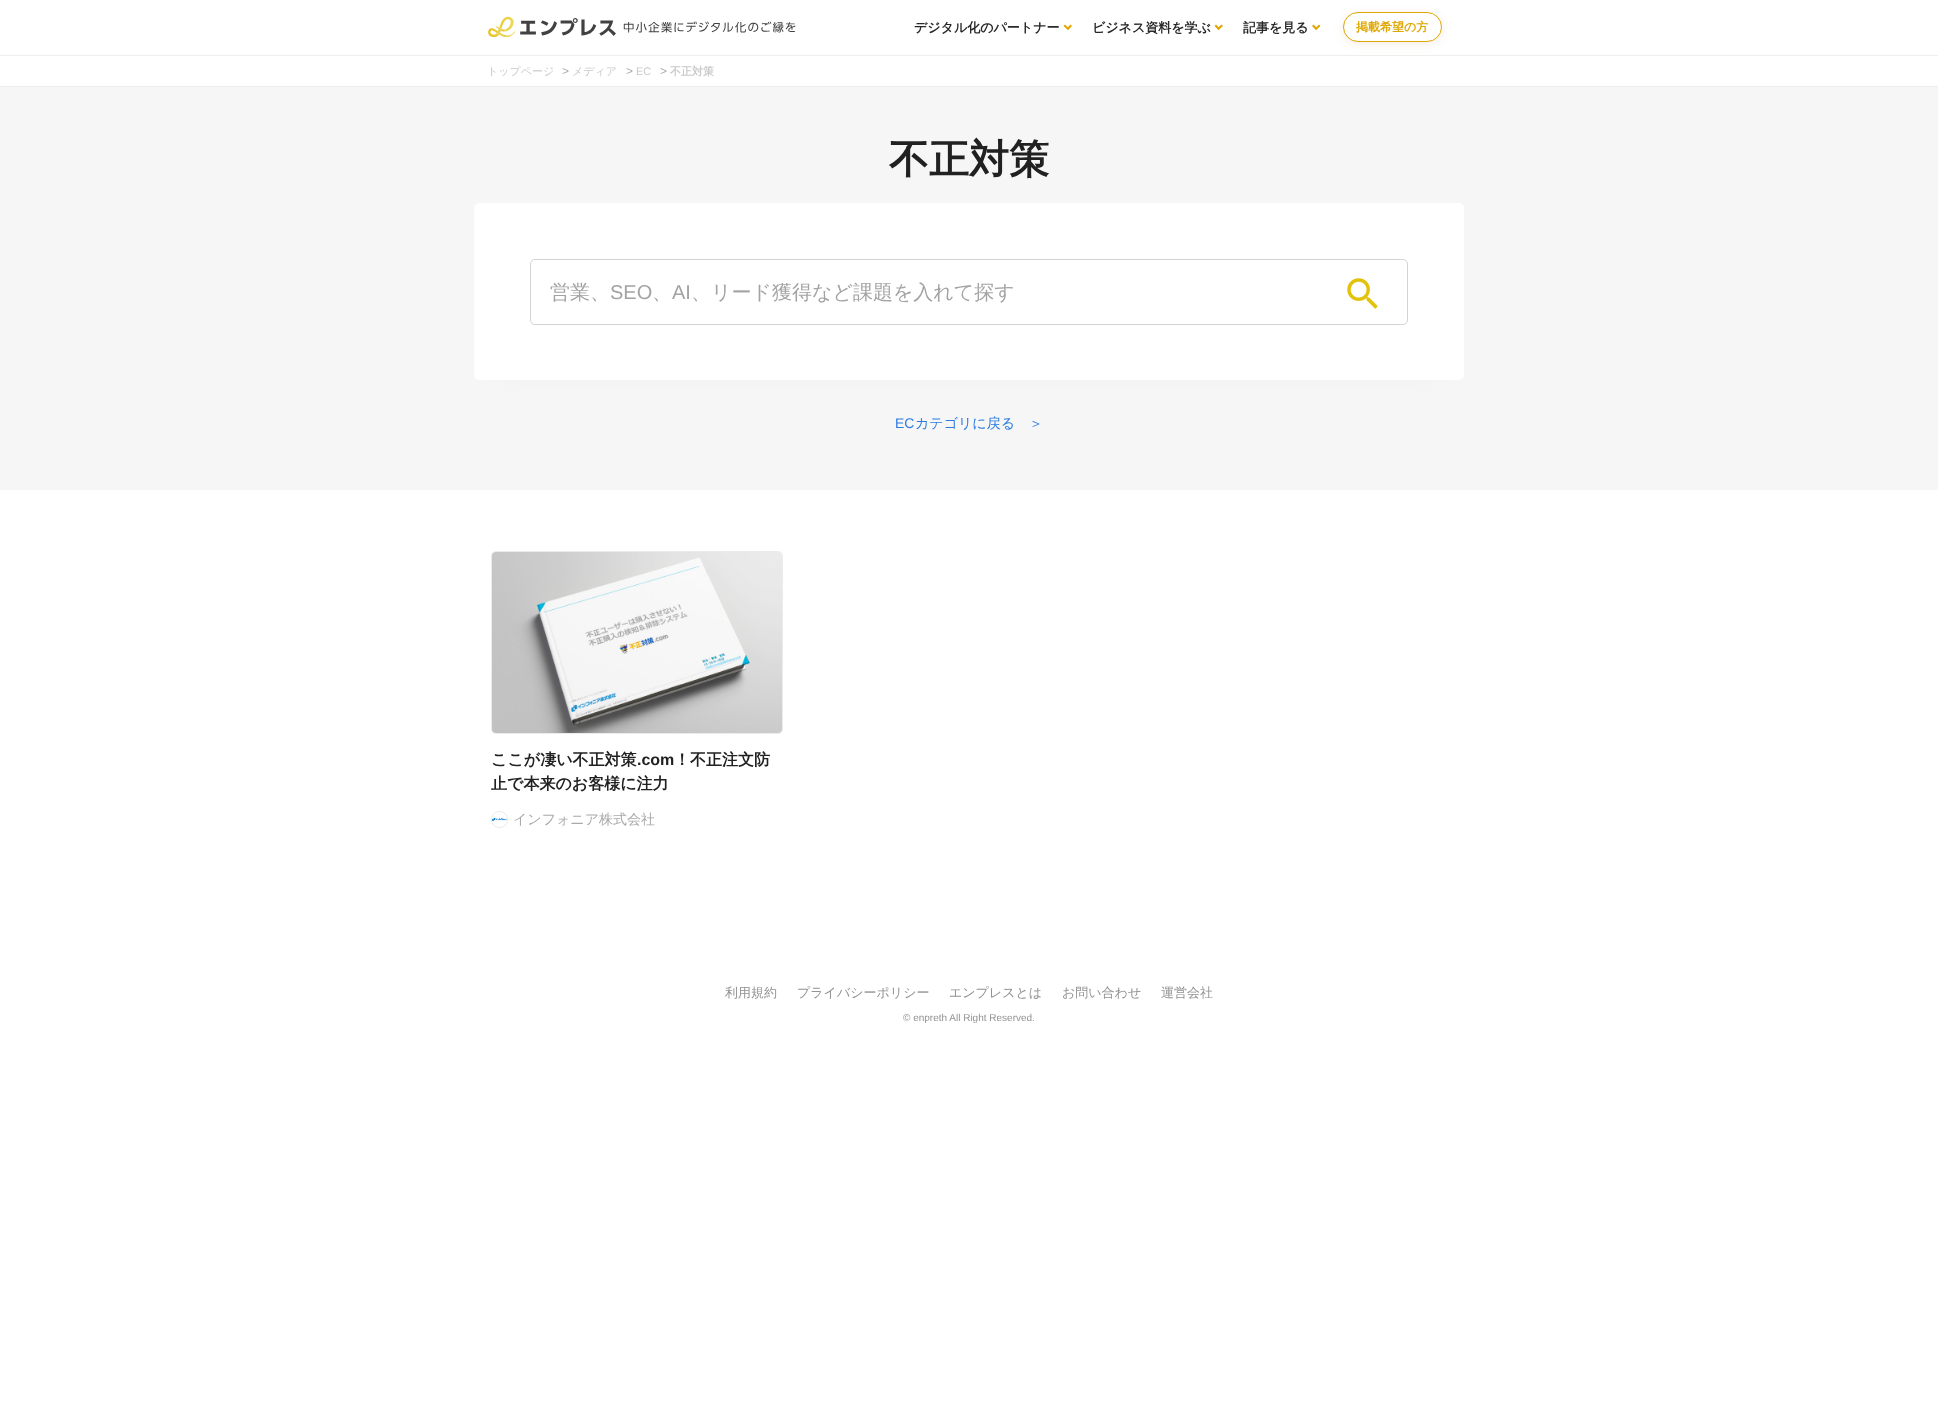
<svg xmlns="http://www.w3.org/2000/svg" width="1938" height="1408">
	<rect width="100%" height="100%" fill="#FFFFFF" />
	<image x="488" y="16" width="308" height="21" href="assets/img1.png" />
	<text x="914" y="32" font-family="WenQuanYi Zen Hei" font-size="13" font-weight="700" fill="#282828">デジタル化のパートナー</text>
	<path d="M1070.5 24.5L1072 26L1068 30L1066.5 28.5Z" fill="#DFA700" />
	<path d="M1065 24.5L1069 28.5L1068 30L1063.5 26Z" fill="#DFA700" />
	<text x="1092" y="32" font-family="WenQuanYi Zen Hei" font-size="13" font-weight="700" fill="#282828">ビジネス資料を学ぶ</text>
	<path d="M1221.5 24.5L1223 26L1218.5 30L1217 28.5Z" fill="#DFA700" />
	<path d="M1216 24.5L1220 28.5L1218.5 30L1214.5 26Z" fill="#DFA700" />
	<text x="1243" y="32" font-family="WenQuanYi Zen Hei" font-size="13" font-weight="700" fill="#282828">記事を見る</text>
	<path d="M1319 24.5L1320.5 26L1316 30L1315 28.5Z" fill="#DFA700" />
	<path d="M1313.5 24.5L1317.5 28.5L1316 30L1312 26Z" fill="#DFA700" />
	<rect x="0" y="55" width="1938" height="1" fill="#EEEEEE" />
	<rect x="1343" y="14" width="99" height="30" rx="15" fill="#9A4C0B" fill-opacity="0.1" filter="blur(5px)" />
	<rect x="1343.5" y="12.5" width="98" height="29" rx="14.5" fill="#FFFFFF" stroke="#DFA700" />
	<text x="1356" y="31" font-family="WenQuanYi Zen Hei" font-size="12" font-weight="700" fill="#DFA700">掲載希望の方</text>
	<rect x="0" y="86" width="1938" height="1" fill="#EEEEEE" />
	<text x="487" y="75" font-family="WenQuanYi Zen Hei" font-size="11" font-weight="500" fill="#CACACA">トップページ</text>
	<text x="562" y="75" font-family="Liberation Sans" font-size="12" fill="#A9A9A9">&gt;</text>
	<text x="572" y="75" font-family="WenQuanYi Zen Hei" font-size="11" font-weight="500" fill="#CACACA">メディア</text>
	<text x="626" y="75" font-family="Liberation Sans" font-size="12" fill="#A9A9A9">&gt;</text>
	<text x="636" y="75" font-family="Liberation Sans" font-size="11" fill="#CACACA">EC</text>
	<text x="660" y="75" font-family="Liberation Sans" font-size="12" fill="#A9A9A9">&gt;</text>
	<text x="670" y="75" font-family="WenQuanYi Zen Hei" font-size="11" font-weight="700" fill="#CACACA">不正対策</text>
	<rect x="0" y="87" width="1938" height="403" fill="#F6F6F6" />
	<text x="889" y="173" font-family="WenQuanYi Zen Hei" font-size="40" font-weight="700" fill="#212121">不正対策</text>
	<rect x="502" y="245" width="934" height="121" fill="#C1C1C1" fill-opacity="0.33" filter="blur(14px)" />
	<rect x="474" y="203" width="990" height="177" rx="5" fill="#FFFFFF" />
	<rect x="530.5" y="259.5" width="877" height="65" rx="4.5" fill="none" stroke="#D3D3D3" />
	<text x="550" y="299" font-family="WenQuanYi Zen Hei" font-size="20" font-weight="500" fill="#A3A3A3">営業、</text>
	<g font-family="Liberation Sans" font-size="20" fill="#A3A3A3">
		<text x="610" y="299">SEO</text>
		<text x="672" y="299">AI</text>
	</g>
	<g font-family="WenQuanYi Zen Hei" font-size="20" font-weight="500" fill="#A3A3A3">
		<text x="691" y="299">、リード獲得など課題を入れて探す</text>
		<text x="652" y="299">、</text>
	</g>
	<image x="1347" y="278" width="31" height="31" href="assets/img2.png" />
	<text x="895" y="428" font-family="Liberation Sans" font-size="14" fill="#2C7BE1">EC</text>
	<text x="915" y="428" font-family="WenQuanYi Zen Hei" font-size="14" font-weight="500" fill="#2C7BE1">カテゴリに戻る　＞</text>
	<rect x="491.5" y="551.5" width="291" height="182" rx="4.5" fill="none" stroke="#EBEBEB" />
	<image x="492" y="552" width="290" height="181" href="assets/img3.png" />
	<text x="491" y="765" font-family="WenQuanYi Zen Hei" font-size="16" font-weight="700" fill="#212121">ここが凄い不正対策</text>
	<text x="637" y="765" font-family="Liberation Sans" font-size="16" font-weight="700" fill="#212121">.com</text>
	<g font-family="WenQuanYi Zen Hei" font-size="16" font-weight="700" fill="#212121">
		<text x="674" y="765">！不正注文防</text>
		<text x="491" y="789">止で本来のお客様に注力</text>
	</g>
	<circle cx="499.5" cy="819.5" r="8" fill="none" stroke="#E8E8E8" />
	<image x="492" y="812" width="15" height="15" href="assets/img4.png" />
	<text x="513" y="824" font-family="WenQuanYi Zen Hei" font-size="14" font-weight="500" fill="#A9A9A9">インフォニア株式会社</text>
	<g font-family="WenQuanYi Zen Hei" font-size="13" font-weight="500" fill="#929292">
		<text x="725" y="997">利用規約</text>
		<text x="797" y="997">プライバシーポリシー</text>
		<text x="949" y="997">エンプレスとは</text>
		<text x="1062" y="997">お問い合わせ</text>
		<text x="1161" y="997">運営会社</text>
	</g>
	<text x="903" y="1021" font-family="Liberation Sans" font-size="10" fill="#929292">© enpreth All Right Reserved.</text>
</svg>
